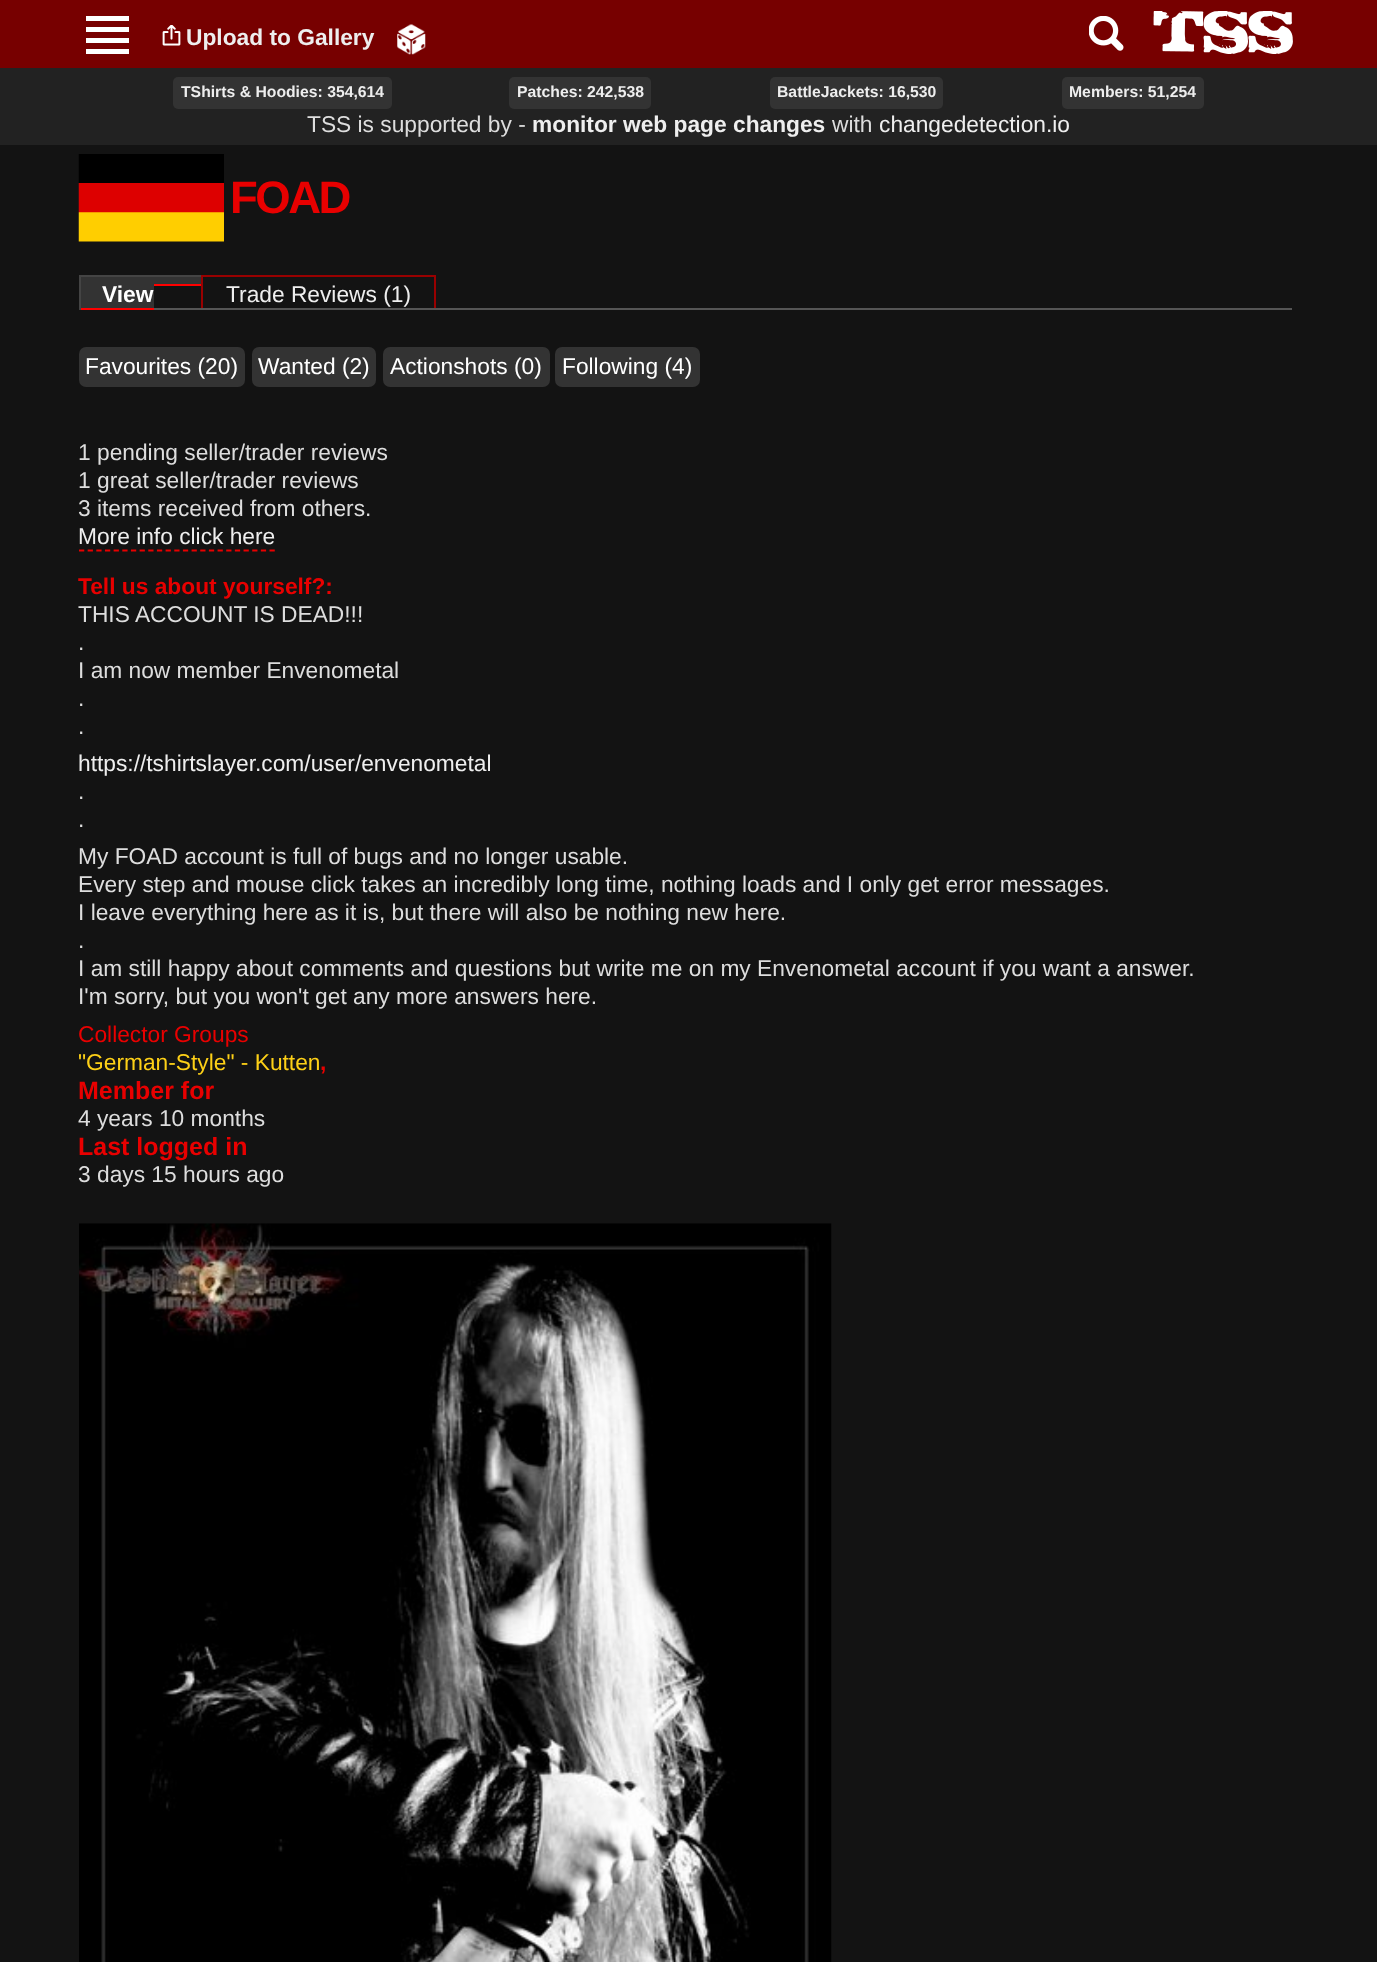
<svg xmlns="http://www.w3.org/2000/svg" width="1377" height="1962">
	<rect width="100%" height="100%" fill="#131313" />
	<rect x="0" y="0" width="1377" height="68" fill="#770000" />
	<rect x="86" y="16" width="43" height="5" fill="#FDFFFF" />
	<rect x="86" y="27" width="43" height="5" fill="#FDFFFF" />
	<rect x="86" y="38" width="43" height="5" fill="#FDFFFF" />
	<rect x="86" y="49" width="43" height="5" fill="#FDFFFF" />
	<image x="162" y="25" width="19" height="21" href="assets/img1.png" />
	<text x="186" y="45" font-family="Liberation Sans" font-size="22.75" font-weight="700" fill="#EEEEEE">Upload to Gallery</text>
	<image x="397" y="24" width="29" height="31" href="assets/img2.png" />
	<image x="1089" y="16" width="35" height="35" href="assets/img3.png" />
	<image x="1153" y="11" width="140" height="43" href="assets/img4.png" />
	<rect x="0" y="68" width="1377" height="77" fill="#222222" />
	<rect x="173" y="77" width="219" height="32" rx="5" fill="#333333" />
	<text x="181" y="97" font-family="Liberation Sans" font-size="15.75" font-weight="700" fill="#EEEEEE">TShirts &amp; Hoodies: 354,614</text>
	<rect x="509" y="77" width="142" height="32" rx="5" fill="#333333" />
	<text x="517" y="97" font-family="Liberation Sans" font-size="15.75" font-weight="700" fill="#EEEEEE">Patches: 242,538</text>
	<rect x="770" y="77" width="173" height="32" rx="5" fill="#333333" />
	<text x="777" y="97" font-family="Liberation Sans" font-size="15.75" font-weight="700" fill="#EEEEEE">BattleJackets: 16,530</text>
	<rect x="1062" y="77" width="142" height="32" rx="5" fill="#333333" />
	<text x="1069" y="97" font-family="Liberation Sans" font-size="15.75" font-weight="700" fill="#EEEEEE">Members: 51,254</text>
	<text x="307" y="132" font-family="Liberation Sans" font-size="22.75" fill="#DDDDDD">TSS is supported by ‐</text>
	<text x="532" y="132" font-family="Liberation Sans" font-size="22.75" font-weight="700" fill="#EEEEEE">monitor web page changes</text>
	<text x="832" y="132" font-family="Liberation Sans" font-size="22.75" fill="#DDDDDD">with</text>
	<text x="879" y="132" font-family="Liberation Sans" font-size="22.75" fill="#EEEEEE">changedetection.io</text>
	<image x="78" y="154" width="146" height="88" href="assets/img5.png" />
	<text x="230" y="213" font-family="Liberation Sans" font-size="45.5" font-weight="700" letter-spacing="-2.5" fill="#E80000">FOAD</text>
	<rect x="154" y="308" width="1138" height="2" fill="#555555" />
	<rect x="81" y="277" width="73" height="31" fill="#333333" />
	<text x="102" y="302" font-family="Liberation Sans" font-size="22.75" font-weight="700" fill="#FFFFFF">View</text>
	<rect x="79" y="275" width="122" height="2" fill="#444444" />
	<rect x="79" y="308" width="75" height="2" fill="#FF0000" />
	<rect x="79" y="275" width="2" height="35" fill="#444444" />
	<rect x="154" y="277" width="47" height="7" fill="#333333" />
	<rect x="154" y="284" width="47" height="2" fill="#FF0000" />
	<text x="226" y="302" font-family="Liberation Sans" font-size="22.75" fill="#EEEEEE">Trade Reviews (1)</text>
	<rect x="201" y="275" width="235" height="2" fill="#990000" />
	<rect x="434" y="275" width="2" height="33" fill="#990000" />
	<rect x="201" y="275" width="2" height="33" fill="#990000" />
	<rect x="79" y="347" width="166" height="40" rx="7" fill="#333333" />
	<text x="85" y="374" font-family="Liberation Sans" font-size="22.75" fill="#FFFFFF">Favourites (20)</text>
	<rect x="252" y="347" width="124" height="40" rx="7" fill="#333333" />
	<text x="258" y="374" font-family="Liberation Sans" font-size="22.75" fill="#FFFFFF">Wanted (2)</text>
	<rect x="383" y="347" width="167" height="40" rx="7" fill="#333333" />
	<text x="390" y="374" font-family="Liberation Sans" font-size="22.75" fill="#FFFFFF">Actionshots (0)</text>
	<rect x="555" y="347" width="145" height="40" rx="7" fill="#333333" />
	<text x="562" y="374" font-family="Liberation Sans" font-size="22.75" fill="#FFFFFF">Following (4)</text>
	<g font-family="Liberation Sans" font-size="22.75" fill="#DDDDDD">
		<text x="78" y="460">1 pending seller/trader reviews</text>
		<text x="78" y="488">1 great seller/trader reviews</text>
		<text x="78" y="516">3 items received from others.</text>
	</g>
	<text x="78" y="544" font-family="Liberation Sans" font-size="22.75" fill="#EEEEEE">More info click here</text>
	<path d="M79 550.5H275" fill="none" stroke="#E80000" stroke-width="1.8" stroke-dasharray="5.25 3.41" />
	<text x="78" y="594" font-family="Liberation Sans" font-size="22.75" font-weight="700" fill="#E80000">Tell us about yourself?:</text>
	<g font-family="Liberation Sans" font-size="22.75" fill="#DDDDDD">
		<text x="78" y="622">THIS ACCOUNT IS DEAD!!!</text>
		<text x="78" y="650">.</text>
		<text x="78" y="678">I am now member Envenometal</text>
		<text x="78" y="706">.</text>
		<text x="78" y="734">.</text>
	</g>
	<text x="78" y="771" font-family="Liberation Sans" font-size="22.75" fill="#EEEEEE">https://tshirtslayer.com/user/envenometal</text>
	<g font-family="Liberation Sans" font-size="22.75" fill="#DDDDDD">
		<text x="78" y="799">.</text>
		<text x="78" y="827">.</text>
		<text x="78" y="864">My FOAD account is full of bugs and no longer usable.</text>
		<text x="78" y="892">Every step and mouse click takes an incredibly long time, nothing loads and I only get error messages.</text>
		<text x="78" y="920">I leave everything here as it is, but there will also be nothing new here.</text>
		<text x="78" y="948">.</text>
		<text x="78" y="976">I am still happy about comments and questions but write me on my Envenometal account if you want a answer.</text>
		<text x="78" y="1004">I'm sorry, but you won't get any more answers here.</text>
	</g>
	<text x="78" y="1042" font-family="Liberation Sans" font-size="22.75" fill="#E80000">Collector Groups</text>
	<text x="78" y="1070" font-family="Liberation Sans" font-size="22.75" fill="#FDD017">"German-Style" - Kutten</text>
	<text x="320" y="1070" font-family="Liberation Sans" font-size="22.75" font-weight="700" fill="#E80000">,</text>
	<text x="78" y="1099" font-family="Liberation Sans" font-size="25" font-weight="700" fill="#E80000">Member for</text>
	<text x="78" y="1126" font-family="Liberation Sans" font-size="22.75" fill="#DDDDDD">4 years 10 months</text>
	<text x="78" y="1155" font-family="Liberation Sans" font-size="25" font-weight="700" fill="#E80000">Last logged in</text>
	<text x="78" y="1182" font-family="Liberation Sans" font-size="22.75" fill="#DDDDDD">3 days 15 hours ago</text>
	<image x="79" y="1223" width="753" height="739" href="assets/img6.png" />
</svg>
